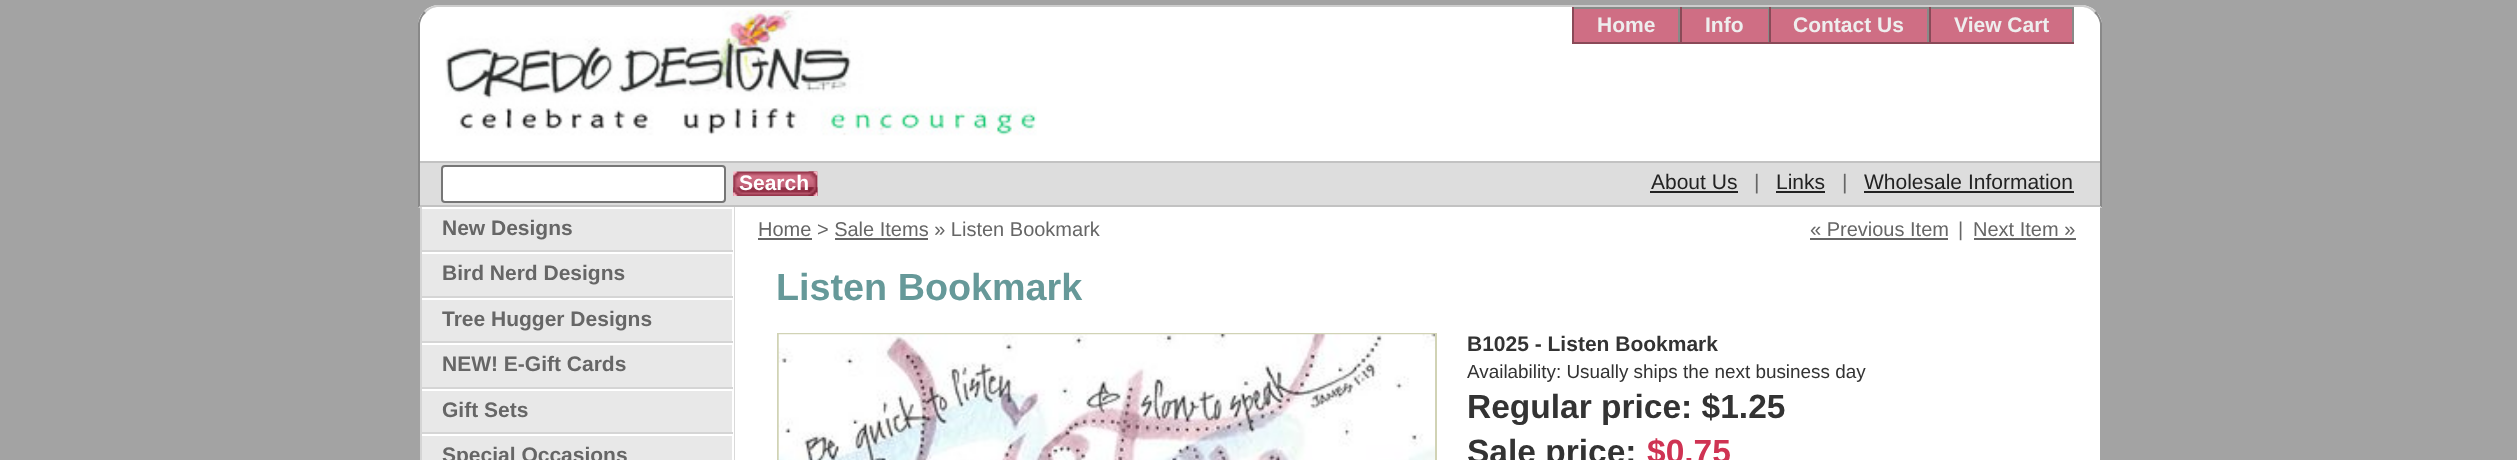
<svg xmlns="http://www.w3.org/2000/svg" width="2517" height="460">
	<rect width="100%" height="100%" fill="#A3A3A3" />
	<path d="M439 5H2081C2092.5 5 2102 14.5 2102 26V208H418V26C418 14.5 427.5 5 439 5Z" fill="#FFFFFF" />
	<path d="M439 7C434 7 429 9 426 13L424 11C428 8 432 6 436 5H2084C2088 6 2092 8 2096 11L2094 13C2091 9 2086 7 2081 7Z" fill="#CDCDCD" />
	<path d="M2102 208L2100 206V26C2100 21 2098 16 2094 13L2096 11C2099 15 2101 19 2102 23Z" fill="#898989" />
	<path d="M2102 208H418L420 206H2100Z" fill="#CDCDCD" />
	<path d="M418 23C419 19 421 15 424 11L426 13C422 16 420 21 420 26V206L418 208Z" fill="#898989" />
	<path d="M441 7H2079C2090.5 7 2100 16.5 2100 28V161H420V28C420 16.5 429.5 7 441 7Z" fill="#FFFFFF" />
	<image x="445" y="9" width="592" height="127" href="assets/img1.png" />
	<rect x="1574" y="9" width="104" height="33" fill="#CF6E84" />
	<rect x="1572" y="7" width="502" height="2" fill="#888A88" />
	<rect x="1678" y="7" width="2" height="37" fill="#888A88" />
	<rect x="1572" y="42" width="108" height="2" fill="#8A4A58" />
	<rect x="1572" y="7" width="2" height="37" fill="#8A4A58" />
	<text x="1597" y="32" font-family="Liberation Sans" font-size="21" font-weight="700" fill="#EEEEEE">Home</text>
	<rect x="1682" y="9" width="86" height="33" fill="#CF6E84" />
	<rect x="1768" y="7" width="1" height="37" fill="#888A88" />
	<rect x="1680" y="42" width="89" height="2" fill="#8A4A58" />
	<rect x="1680" y="7" width="2" height="37" fill="#8A4A58" />
	<text x="1705" y="32" font-family="Liberation Sans" font-size="21" font-weight="700" fill="#EEEEEE">Info</text>
	<rect x="1771" y="9" width="156" height="33" fill="#CF6E84" />
	<rect x="1927" y="7" width="2" height="37" fill="#888A88" />
	<rect x="1769" y="42" width="160" height="2" fill="#8A4A58" />
	<rect x="1769" y="7" width="2" height="37" fill="#8A4A58" />
	<text x="1793" y="32" font-family="Liberation Sans" font-size="21" font-weight="700" fill="#EEEEEE">Contact Us</text>
	<rect x="1931" y="9" width="141" height="33" fill="#CF6E84" />
	<rect x="2072" y="7" width="2" height="37" fill="#888A88" />
	<rect x="1929" y="42" width="145" height="2" fill="#8A4A58" />
	<rect x="1929" y="7" width="2" height="37" fill="#8A4A58" />
	<text x="1954" y="32" font-family="Liberation Sans" font-size="21" font-weight="700" fill="#EEEEEE">View Cart</text>
	<rect x="420" y="163" width="1680" height="42" fill="#DDDDDD" />
	<rect x="420" y="161" width="1680" height="2" fill="#C2C2C2" />
	<rect x="420" y="205" width="1680" height="2" fill="#C2C2C2" />
	<rect x="442" y="166" width="283" height="36" rx="3" fill="#FFFFFF" stroke="#767676" stroke-width="2" />
	<image x="733" y="171" width="85" height="25" href="assets/img2.png" />
	<image x="808" y="171" width="10" height="25" href="assets/img3.png" />
	<image x="733" y="187" width="85" height="9" href="assets/img4.png" />
	<image x="808" y="187" width="10" height="9" href="assets/img5.png" />
	<text x="739" y="190" font-family="Liberation Sans" font-size="21" font-weight="700" fill="#FFFFFF">Search</text>
	<text x="1651" y="189" font-family="Liberation Sans" font-size="21" fill="#222222">About Us</text>
	<rect x="1650" y="191" width="88" height="2" fill="#222222" />
	<text x="1754" y="189" font-family="Liberation Sans" font-size="21" fill="#666666">|</text>
	<text x="1776" y="189" font-family="Liberation Sans" font-size="21" fill="#222222">Links</text>
	<rect x="1776" y="191" width="49" height="2" fill="#222222" />
	<text x="1842" y="189" font-family="Liberation Sans" font-size="21" fill="#666666">|</text>
	<text x="1864" y="189" font-family="Liberation Sans" font-size="21" fill="#222222">Wholesale Information</text>
	<rect x="1864" y="191" width="210" height="2" fill="#222222" />
	<rect x="735" y="207" width="1365" height="253" fill="#FFFFFF" />
	<rect x="422" y="209" width="310" height="251" fill="#E8E8E8" />
	<rect x="734" y="207" width="1" height="253" fill="#D9D9D9" />
	<rect x="420" y="207" width="313" height="2" fill="#FFFFFF" />
	<rect x="732" y="207" width="2" height="45" fill="#FFFFFF" />
	<rect x="420" y="250" width="313" height="2" fill="#D5D5D5" />
	<rect x="420" y="207" width="2" height="45" fill="#D5D5D5" />
	<text x="442" y="235" font-family="Liberation Sans" font-size="21" font-weight="700" fill="#666666">New Designs</text>
	<rect x="420" y="252" width="313" height="2" fill="#FFFFFF" />
	<rect x="732" y="252" width="2" height="46" fill="#FFFFFF" />
	<rect x="420" y="296" width="313" height="2" fill="#D5D5D5" />
	<rect x="420" y="252" width="2" height="46" fill="#D5D5D5" />
	<text x="442" y="280" font-family="Liberation Sans" font-size="21" font-weight="700" fill="#666666">Bird Nerd Designs</text>
	<rect x="420" y="298" width="313" height="2" fill="#FFFFFF" />
	<rect x="732" y="298" width="2" height="45" fill="#FFFFFF" />
	<rect x="420" y="341" width="313" height="2" fill="#D5D5D5" />
	<rect x="420" y="298" width="2" height="45" fill="#D5D5D5" />
	<text x="442" y="326" font-family="Liberation Sans" font-size="21" font-weight="700" fill="#666666">Tree Hugger Designs</text>
	<rect x="420" y="343" width="313" height="2" fill="#FFFFFF" />
	<rect x="732" y="343" width="2" height="46" fill="#FFFFFF" />
	<rect x="420" y="387" width="313" height="2" fill="#D5D5D5" />
	<rect x="420" y="343" width="2" height="46" fill="#D5D5D5" />
	<text x="442" y="371" font-family="Liberation Sans" font-size="21" font-weight="700" fill="#666666">NEW! E-Gift Cards</text>
	<rect x="420" y="389" width="313" height="2" fill="#FFFFFF" />
	<rect x="732" y="389" width="2" height="45" fill="#FFFFFF" />
	<rect x="420" y="432" width="313" height="2" fill="#D5D5D5" />
	<rect x="420" y="389" width="2" height="45" fill="#D5D5D5" />
	<text x="442" y="417" font-family="Liberation Sans" font-size="21" font-weight="700" fill="#666666">Gift Sets</text>
	<rect x="420" y="434" width="313" height="2" fill="#FFFFFF" />
	<rect x="732" y="434" width="2" height="26" fill="#FFFFFF" />
	<rect x="420" y="434" width="2" height="26" fill="#D5D5D5" />
	<text x="442" y="462" font-family="Liberation Sans" font-size="21" font-weight="700" fill="#666666">Special Occasions</text>
	<text x="758" y="236" font-family="Liberation Sans" font-size="20" fill="#666666">Home &gt; Sale Items » Listen Bookmark</text>
	<rect x="758" y="238" width="54" height="2" fill="#666666" />
	<rect x="835" y="238" width="93" height="2" fill="#666666" />
	<text x="1810" y="236" font-family="Liberation Sans" font-size="20" fill="#666666">« Previous Item</text>
	<rect x="1810" y="238" width="138" height="2" fill="#666666" />
	<g font-family="Liberation Sans" font-size="20" fill="#666666">
		<text x="1958" y="236">|</text>
		<text x="1973" y="236">Next Item »</text>
	</g>
	<rect x="1974" y="238" width="102" height="2" fill="#666666" />
	<text x="776" y="300" font-family="Liberation Sans" font-size="37.75" font-weight="700" fill="#669999">Listen Bookmark</text>
	<rect x="778" y="334" width="658" height="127" fill="none" stroke="#D1D3B5" stroke-width="2" />
	<image x="778" y="334" width="657" height="126" href="assets/img6.png" />
	<text x="1467" y="351" font-family="Liberation Sans" font-size="21" font-weight="700" fill="#333333">B1025 - Listen Bookmark</text>
	<text x="1467" y="378" font-family="Liberation Sans" font-size="18.9" fill="#333333">Availability: Usually ships the next business day</text>
	<g font-family="Liberation Sans" font-size="33.5" font-weight="700" fill="#333333">
		<text x="1467" y="418">Regular price: $1.25</text>
		<text x="1467" y="463">Sale price:</text>
	</g>
	<text x="1647" y="463" font-family="Liberation Sans" font-size="33.5" font-weight="700" fill="#CF3353">$0.75</text>
</svg>
